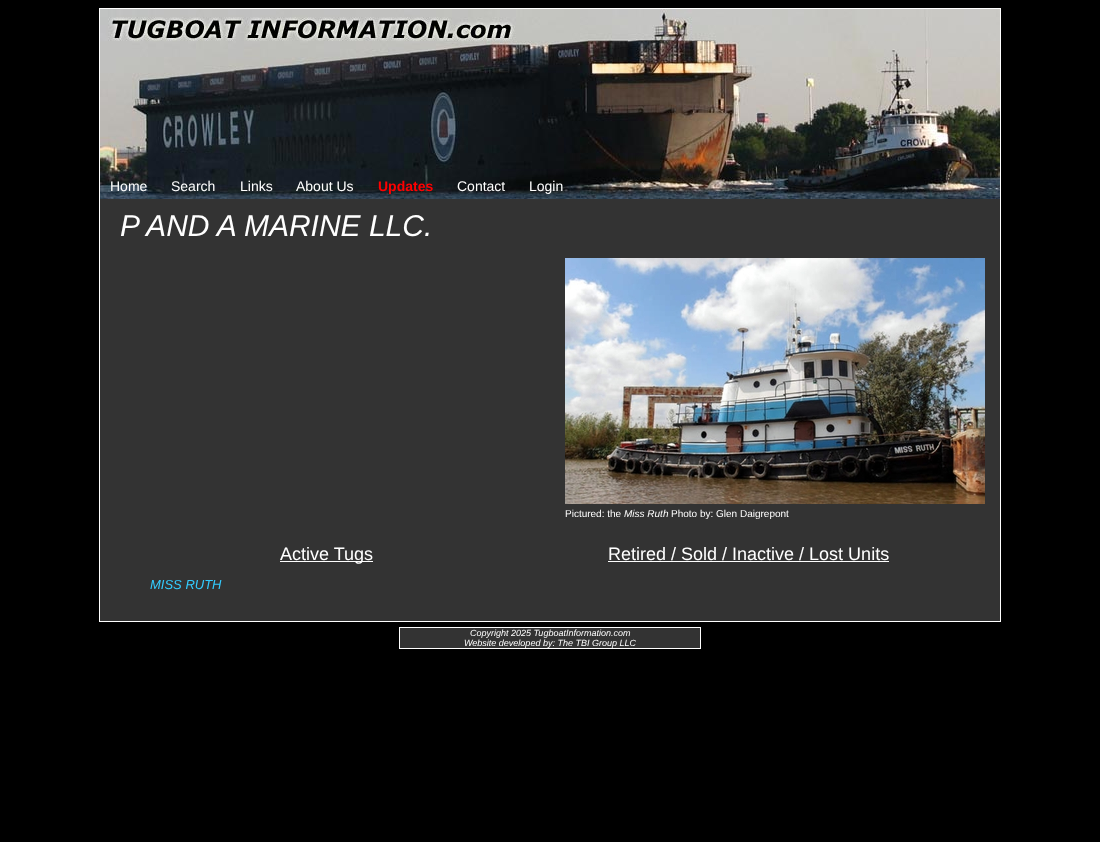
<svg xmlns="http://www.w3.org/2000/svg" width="1100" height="842">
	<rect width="100%" height="100%" fill="#000000" />
	<image x="100" y="9" width="900" height="190" href="assets/img1.png" />
	<rect x="99" y="8" width="902" height="1" fill="#FFFFFF" />
	<rect x="1000" y="8" width="1" height="191" fill="#FFFFFF" />
	<rect x="99" y="8" width="1" height="191" fill="#FFFFFF" />
	<g font-family="Liberation Sans" font-size="14" fill="#FFFFFF">
		<text x="110" y="191">Home</text>
		<text x="171" y="191">Search</text>
		<text x="240" y="191">Links</text>
		<text x="296" y="191">About Us</text>
	</g>
	<text x="378" y="191" font-family="Liberation Sans" font-size="14" font-weight="700" fill="#FF0000">Updates</text>
	<g font-family="Liberation Sans" font-size="14" fill="#FFFFFF">
		<text x="457" y="191">Contact</text>
		<text x="529" y="191">Login</text>
	</g>
	<rect x="100" y="199" width="900" height="422" fill="#333333" />
	<rect x="1000" y="199" width="1" height="423" fill="#FFFFFF" />
	<rect x="99" y="621" width="902" height="1" fill="#FFFFFF" />
	<rect x="99" y="199" width="1" height="423" fill="#FFFFFF" />
	<text x="120" y="236" font-family="Liberation Sans" font-size="30" font-style="italic" fill="#FFFFFF">P AND A MARINE LLC.</text>
	<image x="565" y="258" width="420" height="246" href="assets/img2.png" />
	<text x="565" y="517" font-family="Liberation Sans" font-size="10" fill="#FFFFFF">Pictured: the</text>
	<text x="624" y="517" font-family="Liberation Sans" font-size="10" font-style="italic" fill="#FFFFFF">Miss Ruth</text>
	<text x="671" y="517" font-family="Liberation Sans" font-size="10" fill="#FFFFFF">Photo by: Glen Daigrepont</text>
	<rect x="280" y="561" width="93" height="1" fill="#FFFFFF" />
	<text x="280" y="560" font-family="Liberation Sans" font-size="18" fill="#FFFFFF">Active Tugs</text>
	<text x="150" y="589" font-family="Liberation Sans" font-size="13" font-style="italic" fill="#33CCFF">MISS RUTH</text>
	<text x="608" y="560" font-family="Liberation Sans" font-size="18" fill="#FFFFFF">Retired / Sold / Inactive / Lost Units</text>
	<rect x="608" y="561" width="281" height="1" fill="#FFFFFF" />
	<rect x="399.5" y="627.5" width="301" height="21" fill="#333333" stroke="#FFFFFF" />
	<g font-family="Liberation Sans" font-size="9" font-style="italic" fill="#FFFFFF">
		<text x="470" y="636">Copyright 2025 TugboatInformation.com</text>
		<text x="464" y="646">Website developed by: The TBI Group LLC</text>
	</g>
</svg>
